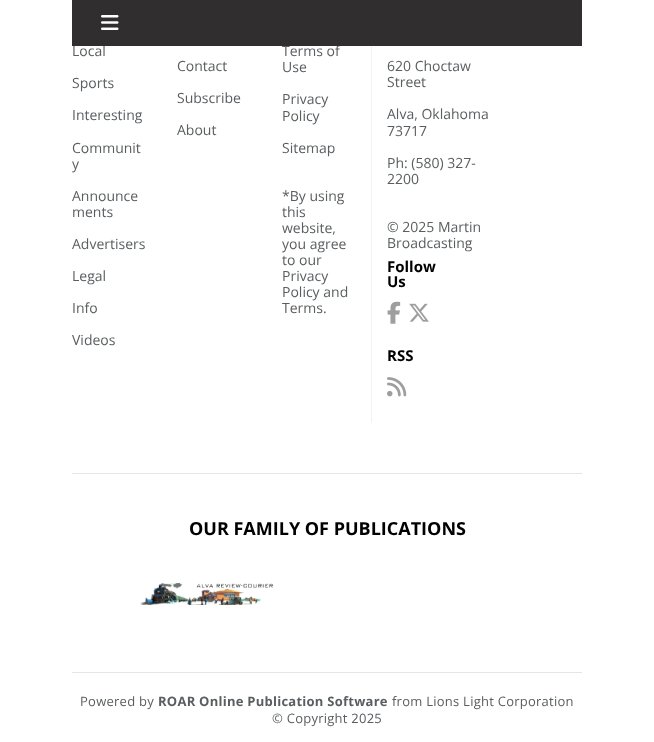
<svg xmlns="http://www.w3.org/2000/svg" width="654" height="742">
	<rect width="100%" height="100%" fill="#FFFFFF" />
	<g font-family="Open Sans" font-size="14" fill="#5A5E60">
		<text x="72" y="56">Local</text>
		<text x="282" y="56">Terms of</text>
	</g>
	<rect x="72" y="0" width="510" height="46" fill="#312E2F" />
	<image x="101" y="15" width="18" height="15" href="assets/img1.png" />
	<g font-family="Open Sans" font-size="14" fill="#5A5E60">
		<text x="72" y="88">Sports</text>
		<text x="72" y="120">Interesting</text>
		<text x="72" y="153">Communit</text>
		<text x="72" y="169">y</text>
		<text x="72" y="201">Announce</text>
		<text x="72" y="217">ments</text>
		<text x="72" y="249">Advertisers</text>
		<text x="72" y="281">Legal</text>
		<text x="72" y="313">Info</text>
		<text x="72" y="345">Videos</text>
		<text x="177" y="71">Contact</text>
		<text x="177" y="103">Subscribe</text>
		<text x="177" y="135">About</text>
		<text x="282" y="72">Use</text>
		<text x="282" y="104">Privacy</text>
		<text x="282" y="121">Policy</text>
		<text x="282" y="153">Sitemap</text>
		<text x="282" y="201">*By using</text>
		<text x="282" y="217">this</text>
		<text x="282" y="233">website,</text>
		<text x="282" y="249">you agree</text>
		<text x="282" y="265">to our</text>
		<text x="282" y="281">Privacy</text>
		<text x="282" y="297">Policy and</text>
		<text x="282" y="313">Terms.</text>
	</g>
	<rect x="371" y="46" width="1" height="377" fill="#F2F2F2" />
	<g font-family="Open Sans" font-size="14" fill="#5A5E60">
		<text x="387" y="71">620 Choctaw</text>
		<text x="387" y="87">Street</text>
		<text x="387" y="119">Alva, Oklahoma</text>
		<text x="387" y="136">73717</text>
		<text x="387" y="168">Ph: (580) 327-</text>
		<text x="387" y="184">2200</text>
		<text x="387" y="232">© 2025 Martin</text>
		<text x="387" y="248">Broadcasting</text>
	</g>
	<g font-family="Open Sans" font-size="15" font-weight="700" fill="#000000">
		<text x="387" y="272">Follow</text>
		<text x="387" y="287">Us</text>
	</g>
	<image x="387" y="301" width="14" height="23" href="assets/img2.png" />
	<image x="409" y="303" width="20" height="19" href="assets/img3.png" />
	<text x="387" y="361" font-family="Open Sans" font-size="15" font-weight="700" fill="#000000">RSS</text>
	<image x="387" y="377" width="20" height="20" href="assets/img4.png" />
	<rect x="72" y="473" width="510" height="1" fill="#E6E6E6" />
	<text x="189" y="535" font-family="Open Sans" font-size="18" font-weight="700" fill="#000000">OUR FAMILY OF PUBLICATIONS</text>
	<image x="140" y="583" width="133" height="22" href="assets/img5.png" />
	<rect x="72" y="672" width="510" height="1" fill="#E6E6E6" />
	<text x="80" y="706" font-family="Open Sans" font-size="13" letter-spacing="0.25" fill="#5A5E60">Powered by</text>
	<text x="158" y="706" font-family="Open Sans" font-size="13" font-weight="700" letter-spacing="0.25" fill="#5A5E60">ROAR Online Publication Software</text>
	<g font-family="Open Sans" font-size="13" letter-spacing="0.25" fill="#5A5E60">
		<text x="392" y="706">from Lions Light Corporation</text>
		<text x="272" y="723">© Copyright 2025</text>
	</g>
</svg>
